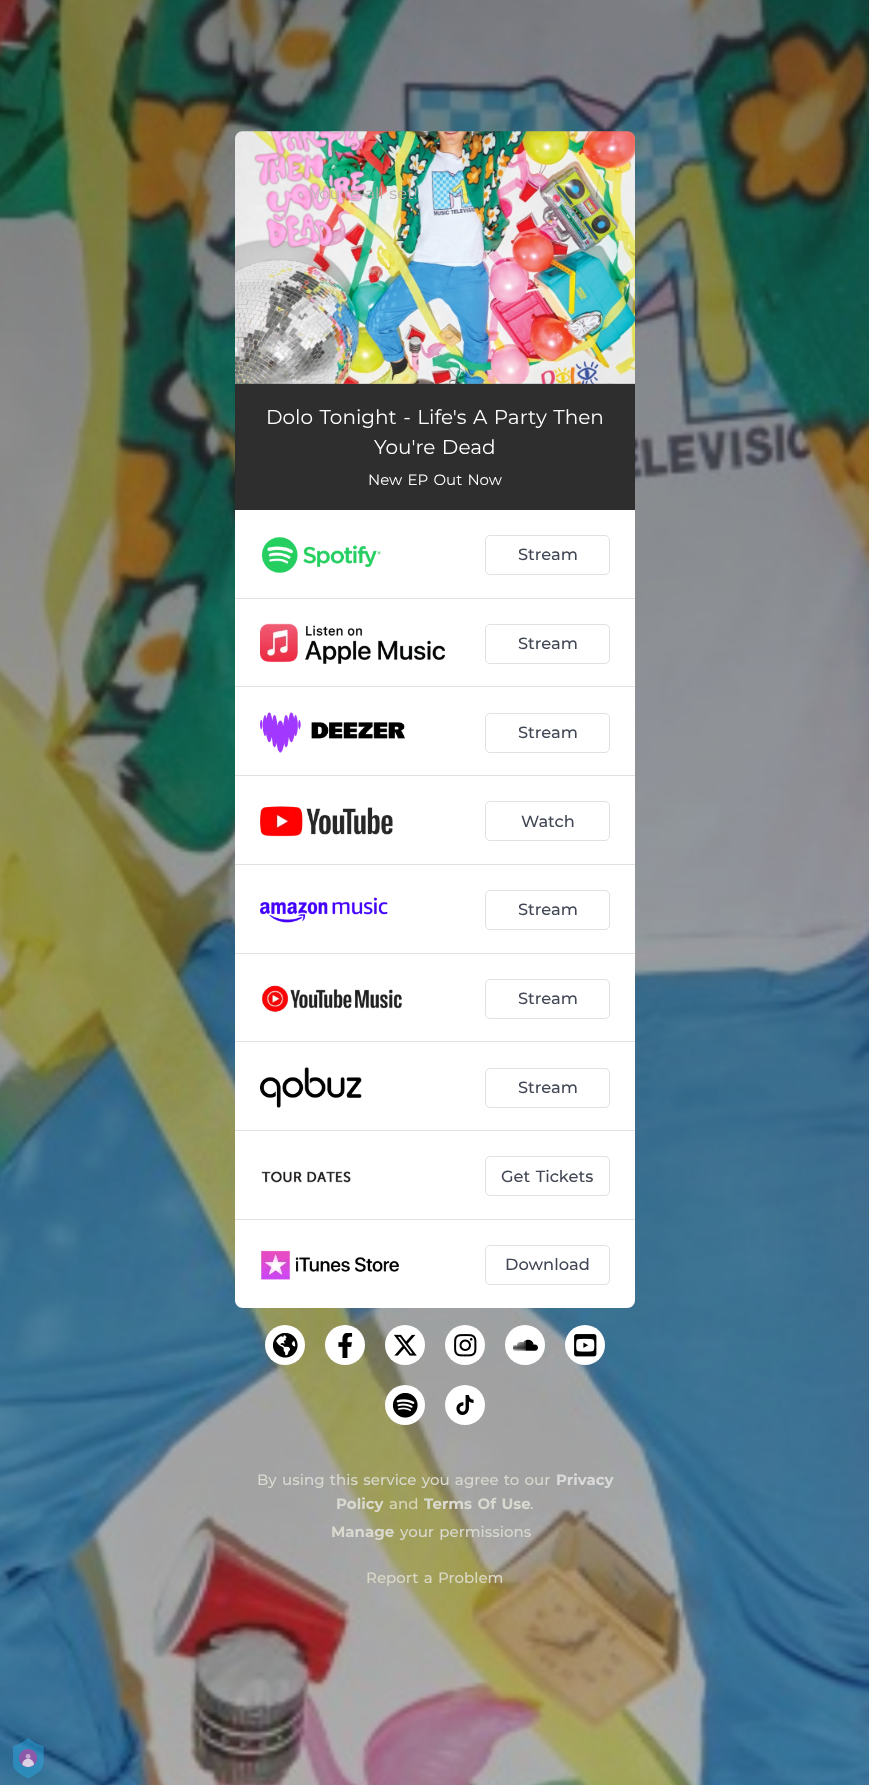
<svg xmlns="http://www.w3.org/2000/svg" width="869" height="1785">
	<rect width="100%" height="100%" fill="#FFFFFF" />
	<image x="0" y="0" width="869" height="1785" href="assets/img1.png" />
	<image x="235" y="131" width="400" height="253" href="assets/img2.png" />
	<text x="310" y="199" word-spacing="1.25" font-family="Montserrat" font-size="16.25" fill="#B9B4B0">You're all set!</text>
	<rect x="235" y="384" width="400" height="126" fill="#2E2E2E" />
	<g font-family="Montserrat" font-size="20" fill="#FFFFFF">
		<text x="266" y="424" word-spacing="1.25">Dolo Tonight - Life's A Party Then</text>
		<text x="374" y="454" word-spacing="1.25">You're Dead</text>
	</g>
	<text x="368" y="485" word-spacing="1.25" font-family="Montserrat" font-size="15" fill="#FFFFFF">New EP Out Now</text>
	<path d="M235 510H635V1300C635 1304.5 631.5 1308 627 1308H243C238.5 1308 235 1304.5 235 1300Z" fill="#FFFFFF" />
	<rect x="235" y="598" width="400" height="1" fill="#E1E1E4" />
	<image x="261" y="537" width="121" height="36" href="assets/img3.png" />
	<rect x="485.5" y="535.5" width="124" height="39" rx="4.5" fill="none" stroke="#E1E1E4" />
	<text x="518" y="560" font-family="Montserrat" font-size="16.25" font-weight="500" fill="#414754">Stream</text>
	<rect x="235" y="686" width="400" height="1" fill="#E1E1E4" />
	<image x="260" y="623" width="185" height="41" href="assets/img4.png" />
	<rect x="485.5" y="624.5" width="124" height="39" rx="4.5" fill="none" stroke="#E1E1E4" />
	<text x="518" y="649" font-family="Montserrat" font-size="16.25" font-weight="500" fill="#414754">Stream</text>
	<rect x="235" y="775" width="400" height="1" fill="#E1E1E4" />
	<image x="260" y="712" width="145" height="41" href="assets/img5.png" />
	<rect x="485.5" y="713.5" width="124" height="39" rx="4.5" fill="none" stroke="#E1E1E4" />
	<text x="518" y="738" font-family="Montserrat" font-size="16.25" font-weight="500" fill="#414754">Stream</text>
	<rect x="235" y="864" width="400" height="1" fill="#E1E1E4" />
	<image x="260" y="806" width="133" height="31" href="assets/img6.png" />
	<rect x="485.5" y="801.5" width="124" height="39" rx="4.5" fill="none" stroke="#E1E1E4" />
	<text x="521" y="827" font-family="Montserrat" font-size="16.25" font-weight="500" fill="#414754">Watch</text>
	<rect x="235" y="953" width="400" height="1" fill="#E1E1E4" />
	<image x="260" y="897" width="128" height="26" href="assets/img7.png" />
	<rect x="485.5" y="890.5" width="124" height="39" rx="4.5" fill="none" stroke="#E1E1E4" />
	<text x="518" y="915" font-family="Montserrat" font-size="16.25" font-weight="500" fill="#414754">Stream</text>
	<rect x="235" y="1041" width="400" height="1" fill="#E1E1E4" />
	<image x="262" y="985" width="140" height="27" href="assets/img8.png" />
	<rect x="485.5" y="979.5" width="124" height="39" rx="4.5" fill="none" stroke="#E1E1E4" />
	<text x="518" y="1004" font-family="Montserrat" font-size="16.25" font-weight="500" fill="#414754">Stream</text>
	<rect x="235" y="1130" width="400" height="1" fill="#E1E1E4" />
	<image x="260" y="1067" width="102" height="41" href="assets/img9.png" />
	<rect x="485.5" y="1068.5" width="124" height="39" rx="4.5" fill="none" stroke="#E1E1E4" />
	<text x="518" y="1093" font-family="Montserrat" font-size="16.25" font-weight="500" fill="#414754">Stream</text>
	<rect x="235" y="1219" width="400" height="1" fill="#E1E1E4" />
	<image x="261" y="1171" width="90" height="12" href="assets/img10.png" />
	<rect x="485.5" y="1156.5" width="124" height="39" rx="4.5" fill="none" stroke="#E1E1E4" />
	<text x="501" y="1182" word-spacing="1.25" font-family="Montserrat" font-size="16.25" font-weight="500" fill="#414754">Get Tickets</text>
	<image x="261" y="1250" width="139" height="30" href="assets/img11.png" />
	<rect x="485.5" y="1245.5" width="124" height="39" rx="4.5" fill="none" stroke="#E1E1E4" />
	<text x="505" y="1270" font-family="Montserrat" font-size="16.25" font-weight="500" fill="#414754">Download</text>
	<circle cx="285" cy="1345" r="20" fill="#FFFFFF" />
	<image x="273" y="1333" width="25" height="25" href="assets/img12.png" />
	<circle cx="345" cy="1345" r="20" fill="#FFFFFF" />
	<image x="338" y="1333" width="15" height="25" href="assets/img13.png" />
	<circle cx="405" cy="1345" r="20" fill="#FFFFFF" />
	<image x="394" y="1334" width="23" height="22" href="assets/img14.png" />
	<circle cx="465" cy="1345" r="20" fill="#FFFFFF" />
	<image x="454" y="1334" width="23" height="23" href="assets/img15.png" />
	<circle cx="525" cy="1345" r="20" fill="#FFFFFF" />
	<image x="513" y="1339" width="25" height="12" href="assets/img16.png" />
	<circle cx="585" cy="1345" r="20" fill="#FFFFFF" />
	<image x="574" y="1334" width="23" height="23" href="assets/img17.png" />
	<circle cx="405" cy="1405" r="20" fill="#FFFFFF" />
	<image x="393" y="1393" width="25" height="25" href="assets/img18.png" />
	<circle cx="465" cy="1405" r="20" fill="#FFFFFF" />
	<image x="456" y="1395" width="18" height="20" href="assets/img19.png" />
	<text x="257" y="1485" word-spacing="1.25" font-family="Montserrat" font-size="15" font-weight="500" fill="#D9D9D0">By using this service you agree to our</text>
	<text x="556" y="1485" font-family="Montserrat" font-size="15" font-weight="700" fill="#DADADA">Privacy</text>
	<text x="336" y="1509" font-family="Montserrat" font-size="15" font-weight="700" fill="#D9D9D0">Policy</text>
	<text x="389" y="1509" font-family="Montserrat" font-size="15" font-weight="500" fill="#D9D8BC">and</text>
	<text x="424" y="1509" word-spacing="1.25" font-family="Montserrat" font-size="15" font-weight="700" fill="#D9D9D0">Terms Of Use</text>
	<text x="530" y="1509" font-family="Montserrat" font-size="15" font-weight="500" fill="#DADADA">.</text>
	<text x="331" y="1537" font-family="Montserrat" font-size="15" font-weight="700" fill="#D9D9D0">Manage</text>
	<text x="400" y="1537" word-spacing="1.25" font-family="Montserrat" font-size="15" font-weight="500" fill="#D9D9D0">your permissions</text>
	<text x="366" y="1583" word-spacing="1.25" font-family="Montserrat" font-size="15" font-weight="500" fill="#DAD9C6">Report a Problem</text>
	<image x="13" y="1738" width="31" height="41" href="assets/img20.png" />
</svg>
